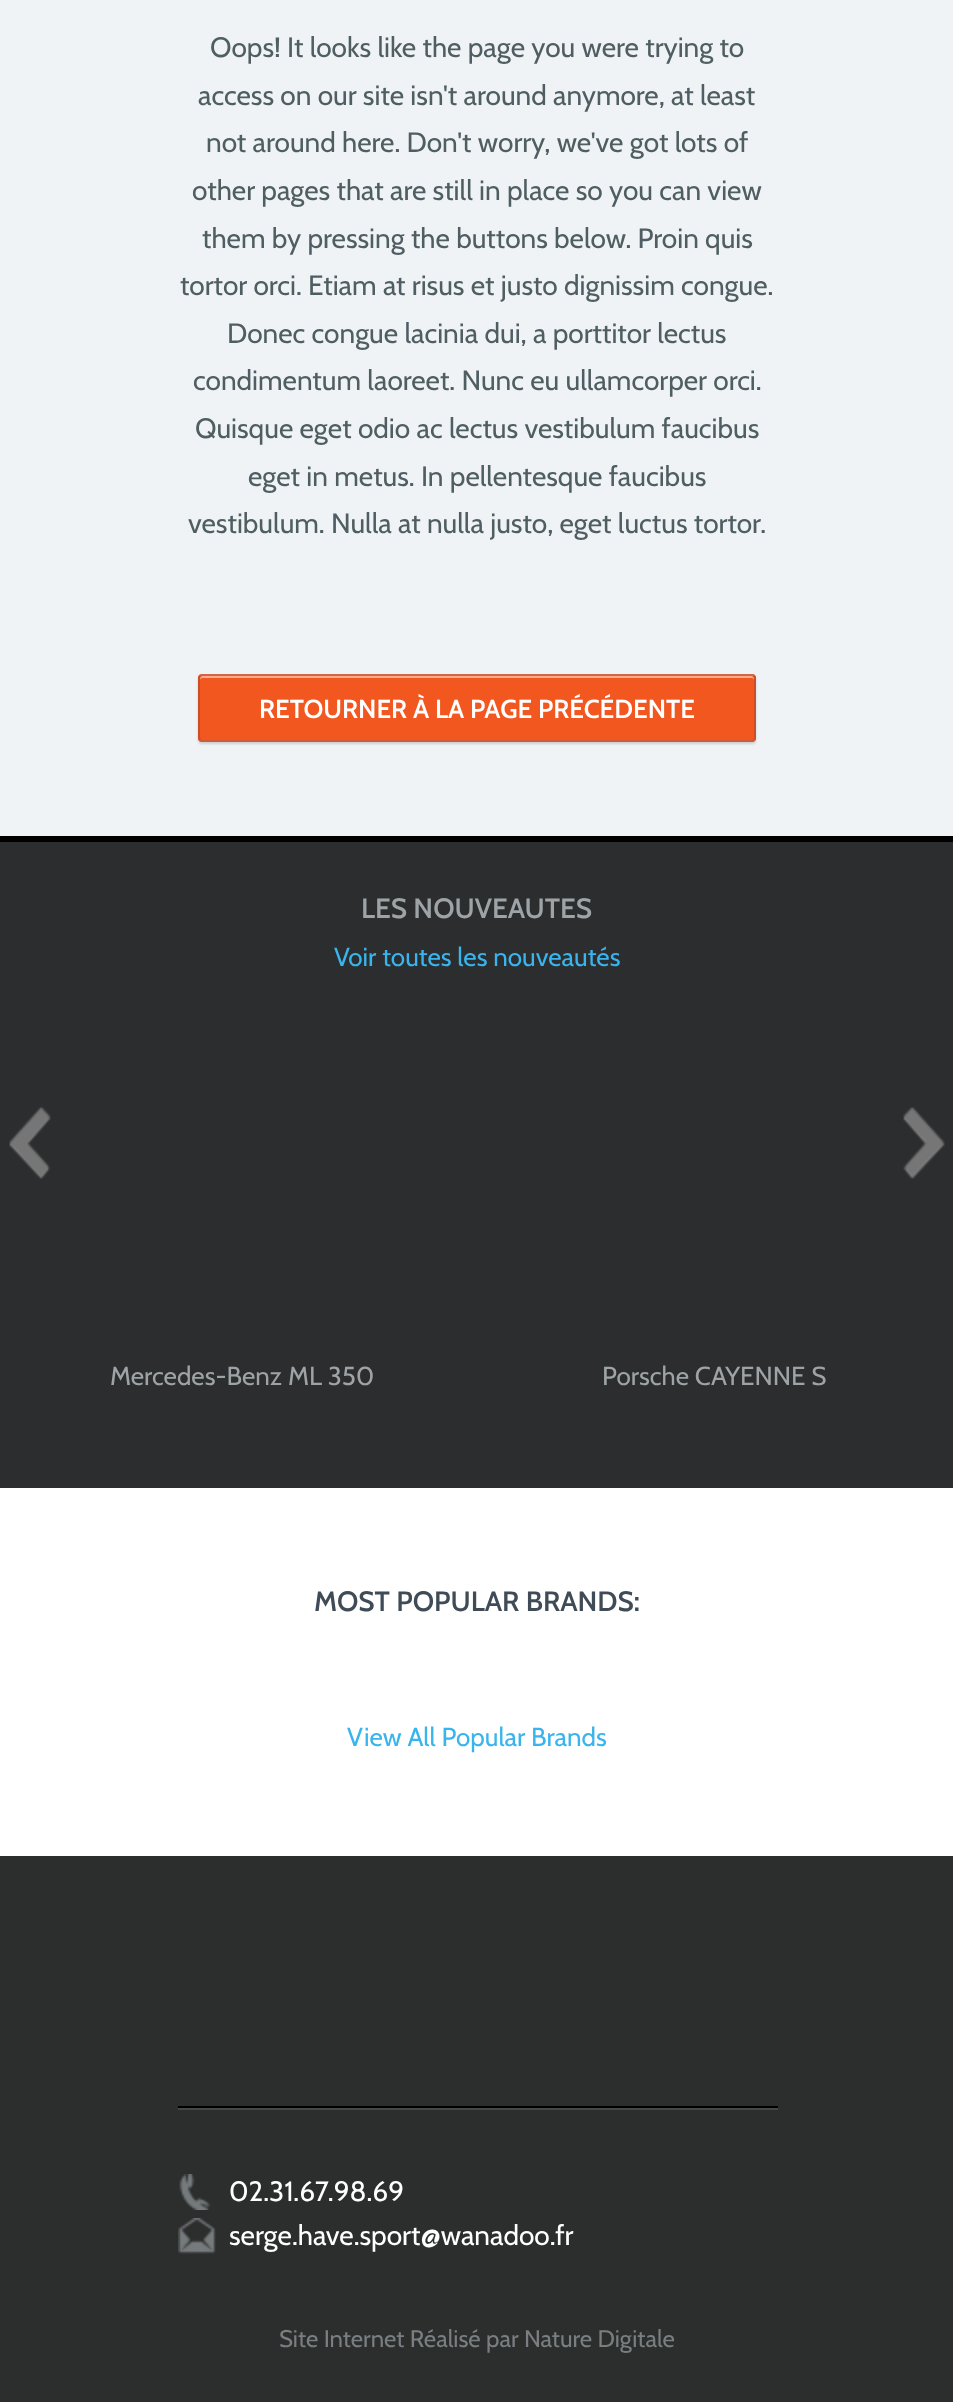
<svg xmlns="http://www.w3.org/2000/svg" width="953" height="2402">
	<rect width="100%" height="100%" fill="#FFFFFF" />
	<rect x="0" y="0" width="953" height="836" fill="#F0F3F5" />
	<g font-family="Cabin" font-size="28" fill="#4F5E62">
		<text x="210" y="57">Oops! It looks like the page you were trying to</text>
		<text x="198" y="105">access on our site isn't around anymore, at least</text>
		<text x="206" y="152">not around here. Don't worry, we've got lots of</text>
		<text x="192" y="200">other pages that are still in place so you can view</text>
		<text x="202" y="248">them by pressing the buttons below. Proin quis</text>
		<text x="180" y="295">tortor orci. Etiam at risus et justo dignissim congue.</text>
		<text x="227" y="343">Donec congue lacinia dui, a porttitor lectus</text>
		<text x="193" y="390">condimentum laoreet. Nunc eu ullamcorper orci.</text>
		<text x="195" y="438">Quisque eget odio ac lectus vestibulum faucibus</text>
		<text x="248" y="486">eget in metus. In pellentesque faucibus</text>
		<text x="188" y="533">vestibulum. Nulla at nulla justo, eget luctus tortor.</text>
	</g>
	<rect x="198" y="676" width="558" height="68" rx="4" fill="#000000" fill-opacity="0.15" filter="blur(1px)" />
	<rect x="198" y="674" width="558" height="68" rx="4" fill="#F25720" />
	<path d="M202 678H752C753 678 754 679 754 680C754 678 754 676 752 676H202L200 677V680C200 679 201 678 202 678Z" fill="#F9AB90" />
	<path d="M200 676L202 675H752L754 676" fill="none" stroke="#D16546" stroke-width="2" />
	<path d="M754 676L755 678V738L754 740" fill="none" stroke="#CA4E2A" stroke-width="2" />
	<path d="M754 740L752 741H202L200 740" fill="none" stroke="#CA5D3D" stroke-width="2" />
	<path d="M200 740L199 738V678L200 676" fill="none" stroke="#CA4E2A" stroke-width="2" />
	<text x="259" y="718" font-family="Cabin" font-size="26" font-weight="600" fill="#FFFFFF">RETOURNER À LA PAGE PRÉCÉDENTE</text>
	<rect x="0" y="842" width="953" height="646" fill="#2C2D2E" />
	<rect x="0" y="836" width="953" height="6" fill="#000000" />
	<text x="361" y="918" font-family="Cabin" font-size="28" font-weight="600" fill="#9DA3A6">LES NOUVEAUTES</text>
	<text x="334" y="966" font-family="Cabin" font-size="26" fill="#39B4ED">Voir toutes les nouveautés</text>
	<image x="9" y="1106" width="42" height="73" href="assets/img1.png" />
	<image x="903" y="1107" width="42" height="72" href="assets/img2.png" />
	<g font-family="Cabin" font-size="26" fill="#9DA3A6">
		<text x="110" y="1385">Mercedes-Benz ML 350</text>
		<text x="602" y="1385">Porsche CAYENNE S</text>
	</g>
	<text x="314" y="1611" font-family="Cabin" font-size="28" font-weight="600" fill="#3F4B56">MOST POPULAR BRANDS:</text>
	<text x="347" y="1746" font-family="Cabin" font-size="26" fill="#39B4ED">View All Popular Brands</text>
	<rect x="0" y="1856" width="953" height="546" fill="#2C2D2D" />
	<rect x="178" y="2106" width="600" height="2" fill="#000000" />
	<rect x="178" y="2108" width="600" height="2" fill="#454646" />
	<image x="179" y="2174" width="32" height="36" href="assets/img3.png" />
	<text x="229" y="2201" font-family="Cabin" font-size="28" fill="#FFFFFF">02.31.67.98.69</text>
	<image x="178" y="2218" width="38" height="36" href="assets/img4.png" />
	<text x="229" y="2245" font-family="Cabin" font-size="28" fill="#FFFFFF">serge.have.sport@wanadoo.fr</text>
	<text x="279" y="2347" font-family="Cabin" font-size="24" fill="#797E80">Site Internet Réalisé par Nature Digitale</text>
</svg>
